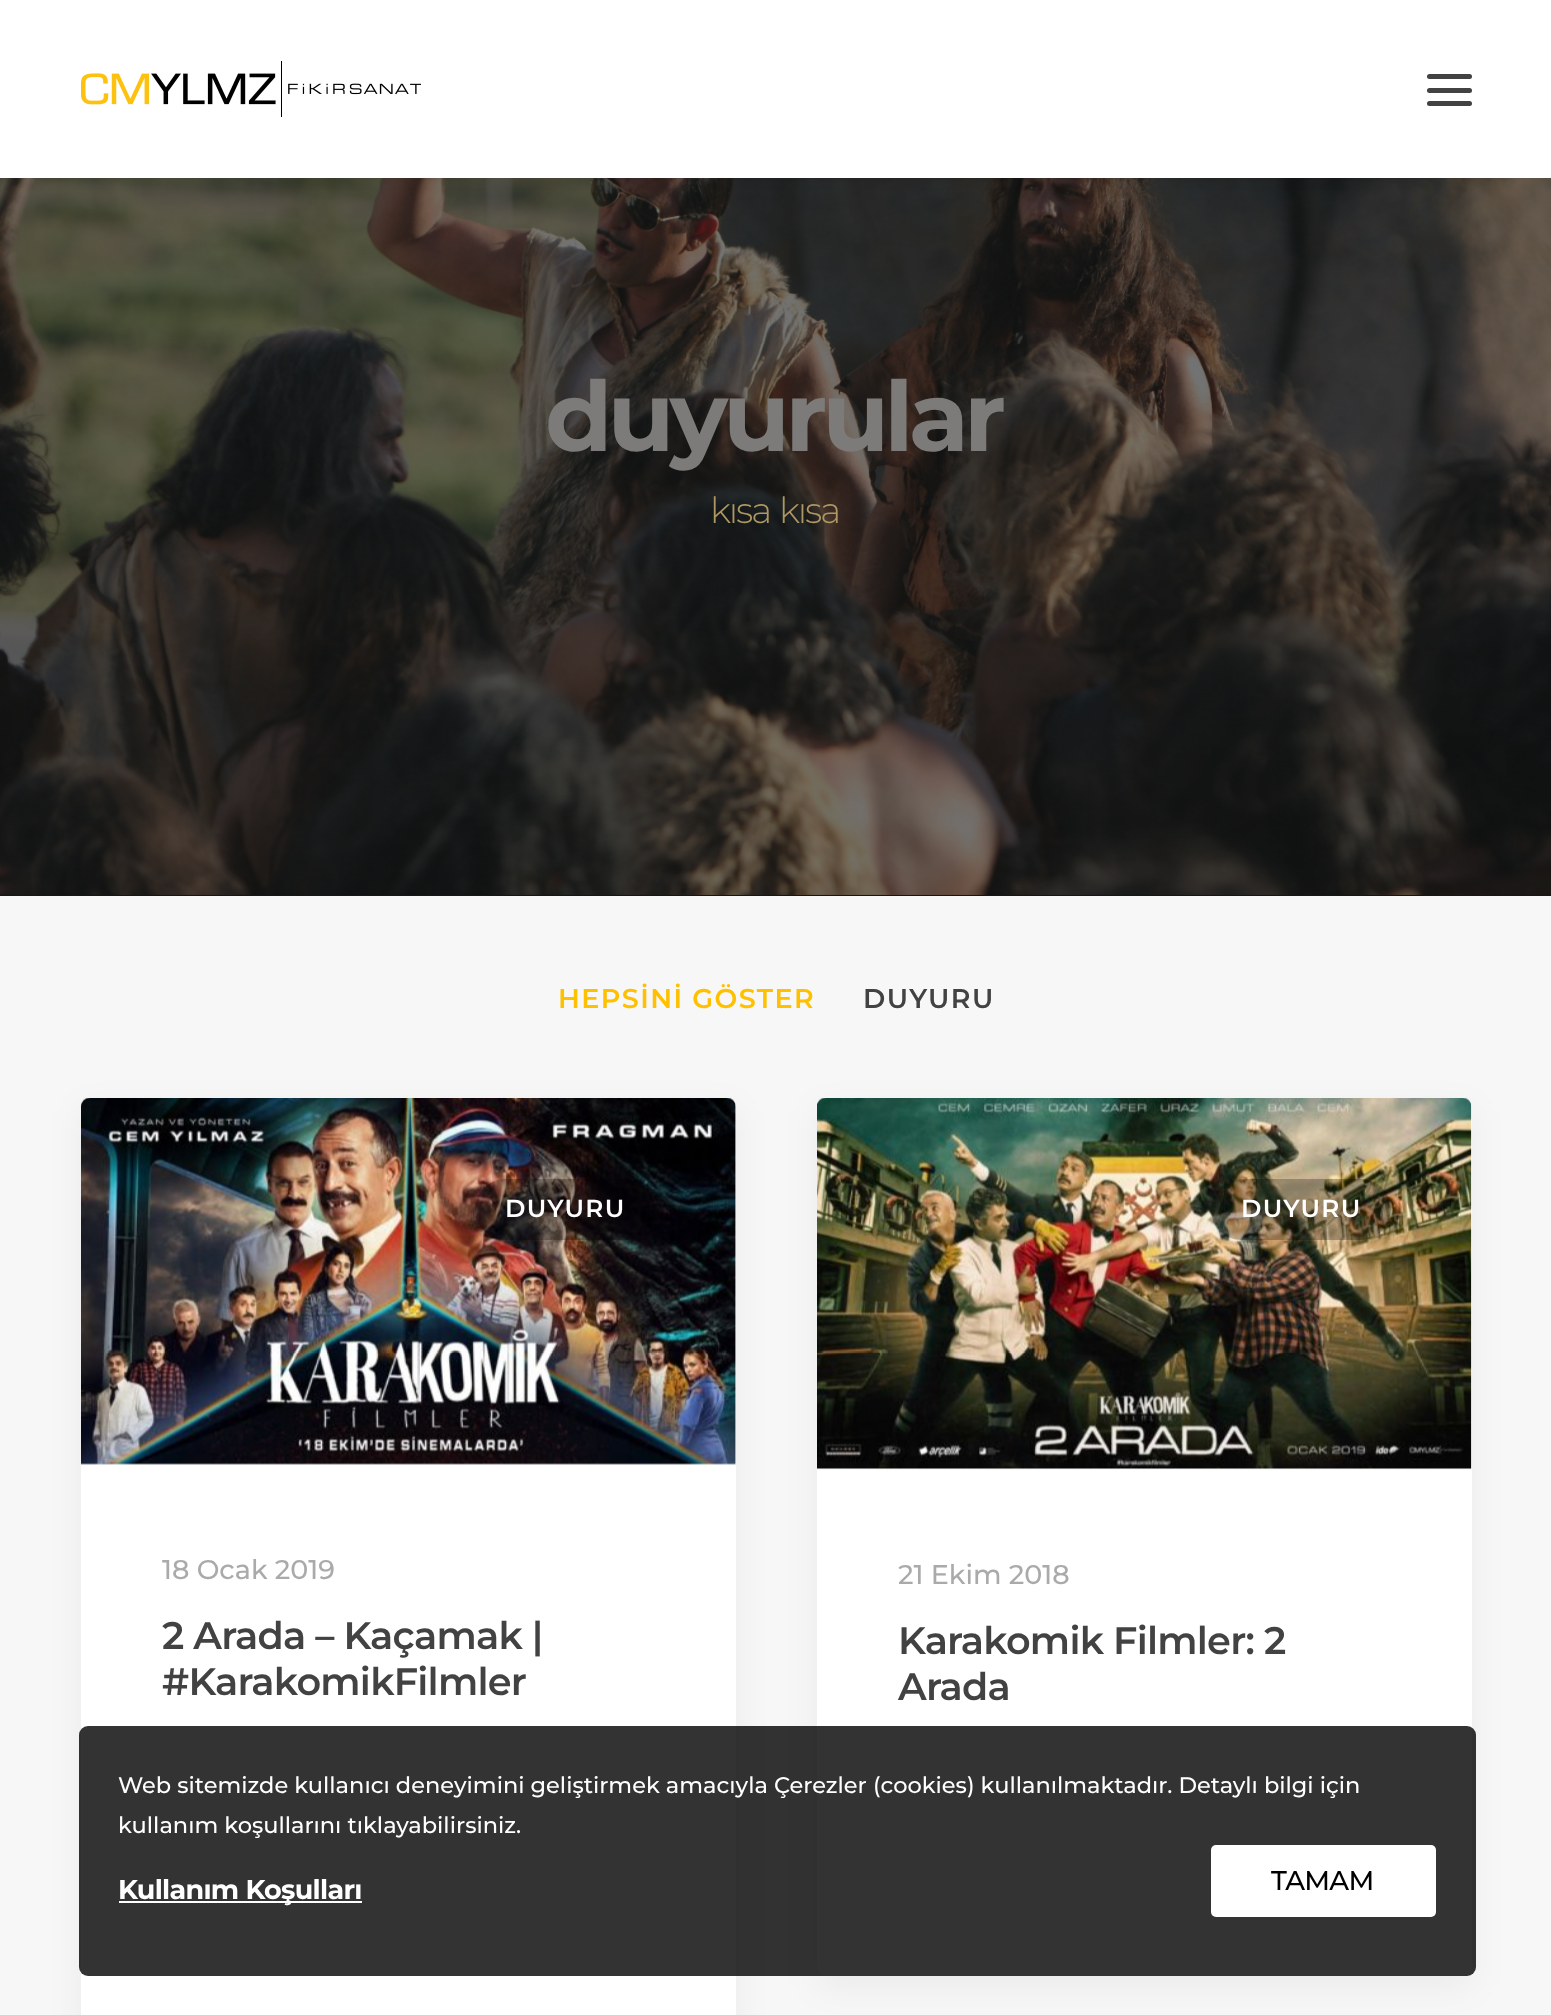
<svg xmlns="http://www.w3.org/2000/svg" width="1551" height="2015">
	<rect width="100%" height="100%" fill="#141618" />
	<image x="0" y="178" width="1551" height="717" href="assets/img2.png" />
	<rect x="23" y="32" width="1507" height="132" fill="#000000" fill-opacity="0.6" filter="blur(11px)" />
	<rect x="0" y="0" width="1551" height="178" fill="#FFFFFF" />
	<image x="81" y="61" width="340" height="56" href="assets/img1.png" />
	<rect x="1427" y="88" width="45" height="5" rx="2.5" fill="#424242" />
	<rect x="1427" y="74" width="45" height="5" rx="2.5" fill="#424242" />
	<rect x="1427" y="101" width="45" height="5" rx="2.5" fill="#424242" />
	<text x="545" y="451" font-family="Montserrat" font-size="97.5" font-weight="700" letter-spacing="-4.9" fill="#7D7B79">duyurular</text>
	<g font-family="Montserrat" font-size="36" font-weight="300" letter-spacing="-2" fill="#AF9762">
		<text x="710" y="523">kısa</text>
		<text x="779" y="523">kısa</text>
	</g>
	<rect x="0" y="896" width="1551" height="1119" fill="#F7F7F7" />
	<text x="558" y="1008" font-family="Montserrat" font-size="27" font-weight="600" letter-spacing="1.4" fill="#FFC000">HEPSİNİ GÖSTER</text>
	<text x="863" y="1008" font-family="Montserrat" font-size="27" font-weight="600" letter-spacing="1.4" fill="#424242">DUYURU</text>
	<rect x="81" y="1109" width="655" height="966" rx="9" fill="#000000" fill-opacity="0.05" filter="blur(17px)" />
	<rect x="81" y="1098" width="655" height="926" rx="9" fill="#FFFFFF" />
	<image x="81" y="1098" width="655" height="367" href="assets/img3.png" />
	<rect x="475" y="1179" width="180" height="61" rx="30.5" fill="#000000" fill-opacity="0.25" />
	<text x="505" y="1217" font-family="Montserrat" font-size="24.75" font-weight="600" letter-spacing="1.25" fill="#FFFFFF">DUYURU</text>
	<text x="162" y="1579" font-family="Montserrat" font-size="27" font-weight="500" fill="#AAAAAA">18 Ocak 2019</text>
	<g font-family="Montserrat" font-size="38.25" font-weight="600" letter-spacing="-0.75" fill="#424242">
		<text x="162" y="1649">2 Arada – Kaçamak |</text>
		<text x="162" y="1695">#KarakomikFilmler</text>
	</g>
	<rect x="817" y="1109" width="655" height="878" rx="9" fill="#000000" fill-opacity="0.05" filter="blur(17px)" />
	<rect x="817" y="1098" width="655" height="878" rx="9" fill="#FFFFFF" />
	<image x="817" y="1098" width="655" height="372" href="assets/img4.png" />
	<rect x="1211" y="1179" width="180" height="61" rx="30.5" fill="#000000" fill-opacity="0.25" />
	<text x="1241" y="1217" font-family="Montserrat" font-size="24.75" font-weight="600" letter-spacing="1.25" fill="#FFFFFF">DUYURU</text>
	<text x="898" y="1584" font-family="Montserrat" font-size="27" font-weight="500" fill="#AAAAAA">21 Ekim 2018</text>
	<g font-family="Montserrat" font-size="38.25" font-weight="600" letter-spacing="-0.75" fill="#424242">
		<text x="898" y="1654">Karakomik Filmler: 2</text>
		<text x="898" y="1700">Arada</text>
	</g>
	<rect x="79" y="1726" width="1397" height="250" rx="9" fill="#000000" fill-opacity="0.8" />
	<g font-family="Montserrat" font-size="22.5" font-weight="500" fill="#FFFFFF">
		<text x="118" y="1793">Web sitemizde kullanıcı deneyimini geliştirmek amacıyla Çerezler (cookies) kullanılmaktadır. Detaylı bilgi için</text>
		<text x="118" y="1833">kullanım koşullarını tıklayabilirsiniz.</text>
	</g>
	<rect x="119" y="1901" width="243" height="2" fill="#FFFFFF" />
	<text x="118" y="1899" font-family="Montserrat" font-size="27" font-weight="700" letter-spacing="-0.7" fill="#FFFFFF">Kullanım Koşulları</text>
	<rect x="1211" y="1845" width="225" height="72" rx="5" fill="#FFFFFF" />
	<text x="1271" y="1890" font-family="Montserrat" font-size="27" font-weight="500" letter-spacing="-0.7" fill="#000000">TAMAM</text>
</svg>
